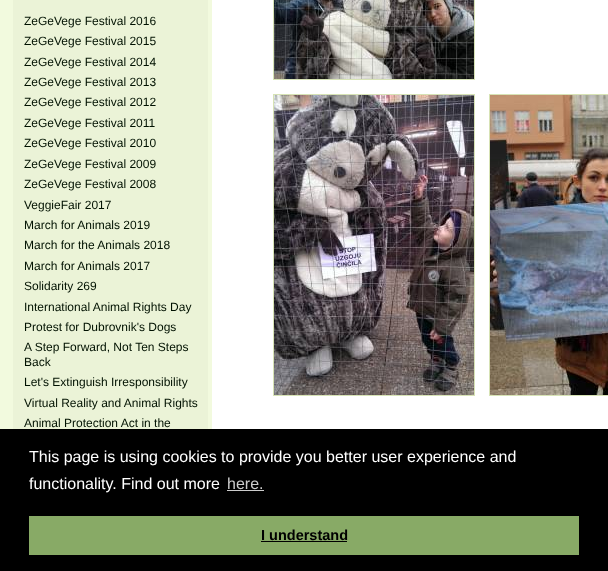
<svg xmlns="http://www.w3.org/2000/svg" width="608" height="571">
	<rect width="100%" height="100%" fill="#FFFFFF" />
	<rect x="0" y="0" width="212" height="429" fill="#F2FADE" />
	<rect x="13" y="0" width="195" height="429" fill="#EBF3D7" />
	<g font-family="Liberation Sans" font-size="12" fill="#001100">
		<text x="24" y="25">ZeGeVege Festival 2016</text>
		<text x="24" y="45">ZeGeVege Festival 2015</text>
		<text x="24" y="66">ZeGeVege Festival 2014</text>
		<text x="24" y="86">ZeGeVege Festival 2013</text>
		<text x="24" y="106">ZeGeVege Festival 2012</text>
		<text x="24" y="127">ZeGeVege Festival 2011</text>
		<text x="24" y="147">ZeGeVege Festival 2010</text>
		<text x="24" y="168">ZeGeVege Festival 2009</text>
		<text x="24" y="188">ZeGeVege Festival 2008</text>
		<text x="24" y="209">VeggieFair 2017</text>
		<text x="24" y="229">March for Animals 2019</text>
		<text x="24" y="249">March for the Animals 2018</text>
		<text x="24" y="270">March for Animals 2017</text>
		<text x="24" y="290">Solidarity 269</text>
		<text x="24" y="311">International Animal Rights Day</text>
		<text x="24" y="331">Protest for Dubrovnik's Dogs</text>
		<text x="24" y="351">A Step Forward, Not Ten Steps</text>
		<text x="24" y="366">Back</text>
		<text x="24" y="386">Let's Extinguish Irresponsibility</text>
		<text x="24" y="407">Virtual Reality and Animal Rights</text>
		<text x="24" y="427">Animal Protection Act in the</text>
	</g>
	<rect x="273.5" y="-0.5" width="201" height="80" fill="none" stroke="#D7E3B5" />
	<image x="274" y="0" width="200" height="79" href="assets/img1.png" />
	<rect x="273.5" y="94.5" width="201" height="301" fill="none" stroke="#D7E3B5" />
	<image x="274" y="95" width="200" height="300" href="assets/img2.png" />
	<rect x="489.5" y="94.5" width="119" height="301" fill="none" stroke="#D7E3B5" />
	<image x="490" y="95" width="118" height="300" href="assets/img3.png" />
	<rect x="0" y="429" width="608" height="142" fill="#000000" />
	<g font-family="Liberation Sans" font-size="16" fill="#FFFFFF">
		<text x="29" y="462">This page is using cookies to provide you better user experience and</text>
		<text x="29" y="489">functionality. Find out more</text>
	</g>
	<text x="227" y="489" font-family="Liberation Sans" font-size="16" fill="#CCCCCC">here.</text>
	<rect x="227" y="490" width="37" height="1" fill="#CCCCCC" />
	<rect x="29" y="516" width="550" height="39" fill="#88AA66" />
	<text x="261" y="540" font-family="Liberation Sans" font-size="14.5" font-weight="700" fill="#000000">I understand</text>
	<rect x="261" y="541" width="86" height="1" fill="#000000" />
</svg>
